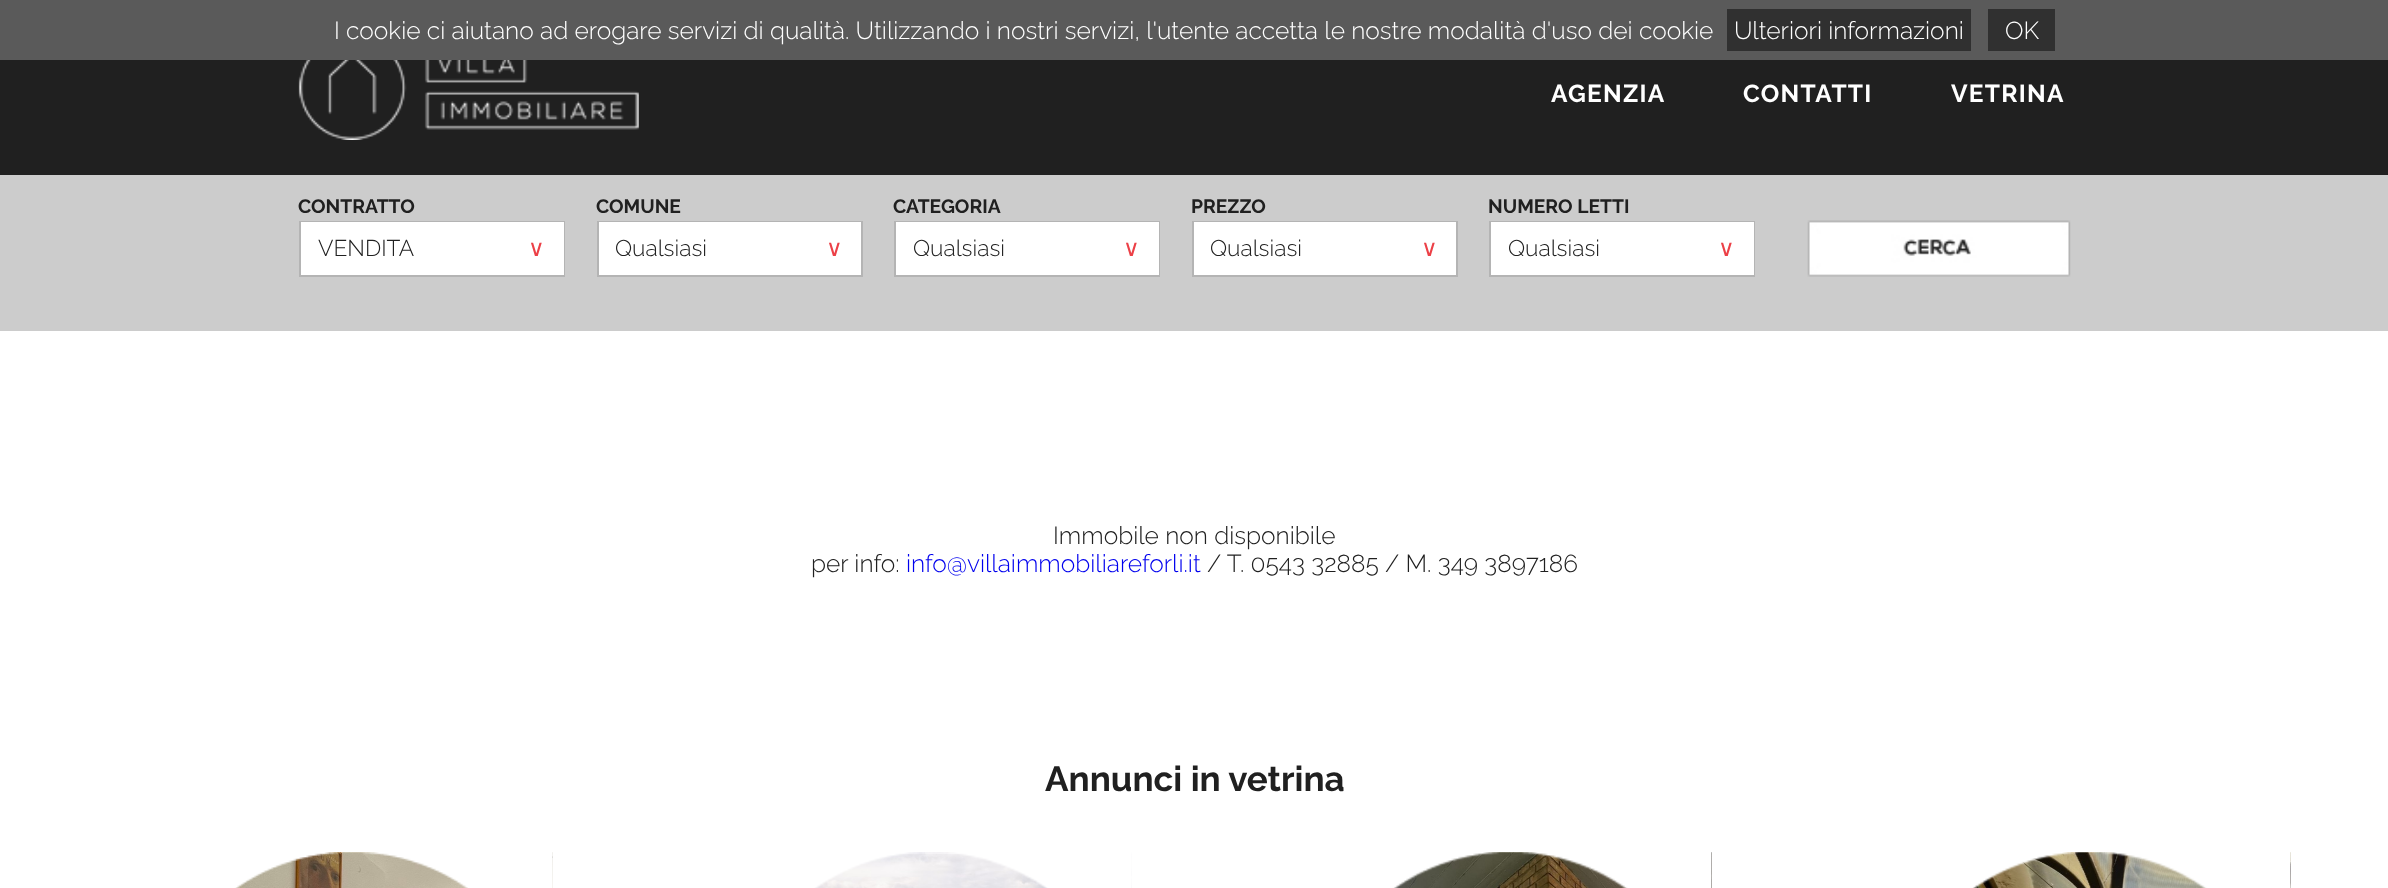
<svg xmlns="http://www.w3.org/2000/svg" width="2388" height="888">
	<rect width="100%" height="100%" fill="#FFFFFF" />
	<rect x="0" y="0" width="2388" height="60" fill="#5A5A5A" />
	<text x="334" y="39" font-family="Raleway" font-size="24.5" font-weight="300" fill="#FFFFFF">I cookie ci aiutano ad erogare servizi di qualità. Utilizzando i nostri servizi, l'utente accetta le nostre modalità d'uso dei cookie</text>
	<rect x="1727" y="9" width="244" height="42" fill="#303030" />
	<text x="1734" y="39" font-family="Raleway" font-size="24.5" font-weight="300" fill="#FFFFFF">Ulteriori informazioni</text>
	<rect x="1988" y="9" width="67" height="42" fill="#303030" />
	<text x="2005" y="39" font-family="Raleway" font-size="24.5" font-weight="300" fill="#FFFFFF">OK</text>
	<rect x="0" y="60" width="2388" height="115" fill="#202020" />
	<image x="298" y="60" width="341" height="80" href="assets/img1.png" />
	<g font-family="Raleway" font-size="24.5" font-weight="700" letter-spacing="1.25" fill="#FFFFFF">
		<text x="1551" y="102">AGENZIA</text>
		<text x="1743" y="102">CONTATTI</text>
		<text x="1951" y="102">VETRINA</text>
	</g>
	<rect x="0" y="175" width="2388" height="156" fill="#CCCCCC" />
	<g font-family="Raleway" font-size="19.25" font-weight="700" fill="#202020">
		<text x="298" y="213">CONTRATTO</text>
		<text x="596" y="213">COMUNE</text>
		<text x="893" y="213">CATEGORIA</text>
		<text x="1191" y="213">PREZZO</text>
		<text x="1488" y="213">NUMERO LETTI</text>
	</g>
	<rect x="300" y="222" width="264" height="54" fill="none" stroke="#B4B4B4" stroke-width="2" />
	<rect x="301" y="222" width="263" height="53" fill="#FFFFFF" />
	<text x="318" y="256" font-family="Raleway" font-size="22.75" font-weight="300" fill="#202020">VENDITA</text>
	<text x="528" y="256" font-family="DejaVu Sans" font-size="22.75" fill="#EC4047">∨</text>
	<rect x="598" y="222" width="264" height="54" fill="none" stroke="#B4B4B4" stroke-width="2" />
	<rect x="599" y="222" width="262" height="53" fill="#FFFFFF" />
	<text x="615" y="256" font-family="Raleway" font-size="22.75" font-weight="300" fill="#202020">Qualsiasi</text>
	<text x="826" y="256" font-family="DejaVu Sans" font-size="22.75" fill="#EC4047">∨</text>
	<rect x="895" y="222" width="264" height="54" fill="none" stroke="#B4B4B4" stroke-width="2" />
	<rect x="896" y="222" width="263" height="53" fill="#FFFFFF" />
	<text x="913" y="256" font-family="Raleway" font-size="22.75" font-weight="300" fill="#202020">Qualsiasi</text>
	<text x="1123" y="256" font-family="DejaVu Sans" font-size="22.75" fill="#EC4047">∨</text>
	<rect x="1193" y="222" width="264" height="54" fill="none" stroke="#B4B4B4" stroke-width="2" />
	<rect x="1194" y="222" width="262" height="53" fill="#FFFFFF" />
	<text x="1210" y="256" font-family="Raleway" font-size="22.75" font-weight="300" fill="#202020">Qualsiasi</text>
	<text x="1421" y="256" font-family="DejaVu Sans" font-size="22.75" fill="#EC4047">∨</text>
	<rect x="1490" y="222" width="264" height="54" fill="none" stroke="#B4B4B4" stroke-width="2" />
	<rect x="1491" y="222" width="263" height="53" fill="#FFFFFF" />
	<text x="1508" y="256" font-family="Raleway" font-size="22.75" font-weight="300" fill="#202020">Qualsiasi</text>
	<text x="1718" y="256" font-family="DejaVu Sans" font-size="22.75" fill="#EC4047">∨</text>
	<image x="1807" y="220" width="264" height="57" href="assets/img2.png" />
	<g font-family="Raleway" font-size="24.5" font-weight="300" fill="#202020">
		<text x="1053" y="544">Immobile non disponibile</text>
		<text x="811" y="572">per info:</text>
	</g>
	<text x="906" y="572" font-family="Raleway" font-size="24.5" font-weight="300" fill="#0000EE">info@villaimmobiliareforli.it</text>
	<text x="1207" y="572" font-family="Raleway" font-size="24.5" font-weight="300" fill="#202020">/ T. 0543 32885 / M. 349 3897186</text>
	<text x="1045" y="791" font-family="Raleway" font-size="35" font-weight="700" fill="#202020">Annunci in vetrina</text>
	<image x="234" y="852" width="319" height="36" href="assets/img4.png" />
	<image x="151" y="852" width="402" height="36" href="assets/img3.png" />
	<image x="813" y="852" width="319" height="36" href="assets/img6.png" />
	<image x="730" y="852" width="402" height="36" href="assets/img5.png" />
	<image x="1392" y="852" width="320" height="36" href="assets/img8.png" />
	<image x="1309" y="852" width="403" height="36" href="assets/img7.png" />
	<image x="1971" y="852" width="320" height="36" href="assets/img10.png" />
	<image x="1888" y="852" width="403" height="36" href="assets/img9.png" />
</svg>
